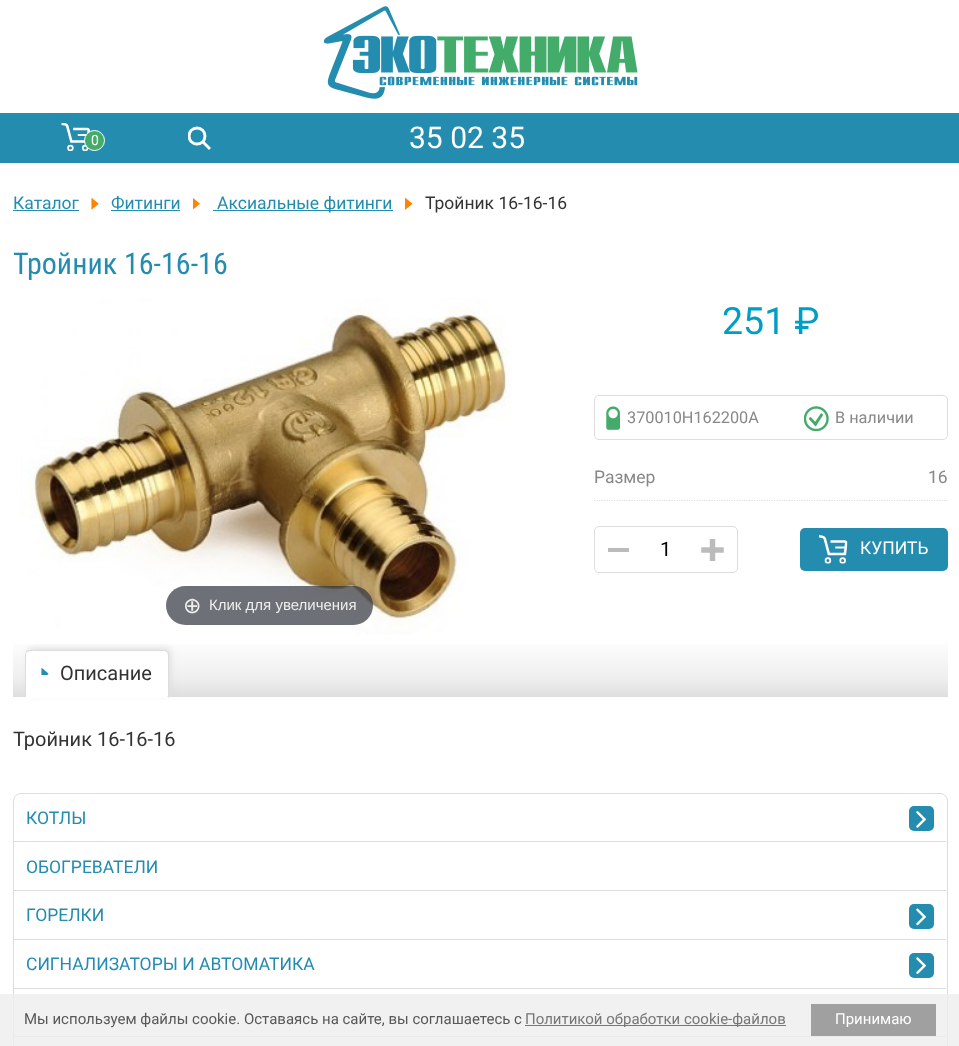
<svg xmlns="http://www.w3.org/2000/svg" width="959" height="1046">
	<defs>
		<clipPath id="clip1"><rect x="188" y="126" width="23" height="24" /></clipPath>
		<linearGradient id="g1" gradientUnits="userSpaceOnUse" x1="480" y1="696" x2="480" y2="635"><stop offset="0" stop-color="#DFDFDF" /><stop offset="0.3" stop-color="#EFEFEF" /><stop offset="0.95" stop-color="#FFFFFF" /></linearGradient>
	</defs>
	<rect width="100%" height="100%" fill="#FFFFFF" />
	<image x="324" y="6" width="314" height="93" href="assets/img1.png" />
	<rect x="0" y="113" width="959" height="50" fill="#238CAF" />
	<image x="61" y="123" width="29" height="28" href="assets/img2.png" />
	<circle cx="94.5" cy="140.5" r="10" fill="#43AC6A" stroke="#FFFFFF" />
	<text x="91" y="145" font-family="Roboto" font-size="14" fill="#FFFFFF">0</text>
	<g clip-path="url(#clip1)">
		<circle cx="197" cy="136" r="8" fill="none" stroke="#FFFFFF" stroke-width="2.9" />
	</g>
	<path d="M202.5 141.5L210 149" fill="none" stroke="#FFFFFF" stroke-width="2.9" />
	<text x="409" y="148" font-family="Roboto" font-size="30" fill="#FFFFFF">35 02 35</text>
	<text x="13" y="209" font-family="Roboto" font-size="17.5" fill="#238CAF">Каталог</text>
	<rect x="13" y="210" width="66" height="1" fill="#238CAF" />
	<image x="91" y="198" width="8" height="12" href="assets/img3.png" />
	<text x="111" y="209" font-family="Roboto" font-size="17.5" fill="#238CAF">Фитинги</text>
	<rect x="111" y="210" width="69" height="1" fill="#238CAF" />
	<image x="193" y="198" width="7" height="12" href="assets/img4.png" />
	<rect x="213" y="210" width="180" height="1" fill="#238CAF" />
	<text x="217" y="209" font-family="Roboto" font-size="17.5" fill="#238CAF">Аксиальные фитинги</text>
	<image x="405" y="198" width="8" height="12" href="assets/img5.png" />
	<text x="425" y="209" font-family="Roboto" font-size="17.5" fill="#333333">Тройник 16-16-16</text>
	<text x="13" y="274" font-family="Roboto Condensed" font-size="30" fill="#238CAF">Тройник 16-16-16</text>
	<text x="722" y="334" font-family="Roboto" font-size="37.5" fill="#009EC4">251 ₽</text>
	<rect x="594.5" y="395.5" width="353" height="44" rx="4.5" fill="none" stroke="#DDDDDD" />
	<image x="606" y="406" width="14" height="24" href="assets/img6.png" />
	<text x="627" y="423" font-family="Roboto" font-size="16.25" fill="#888888">370010H162200A</text>
	<image x="804" y="406" width="25" height="25" href="assets/img7.png" />
	<text x="835" y="423" font-family="Roboto" font-size="16.25" fill="#888888">В наличии</text>
	<path d="M594 500.5H947.5" fill="none" stroke="#DDDDDD" stroke-width="1.2" stroke-dasharray="1.25 1.25" />
	<g font-family="Roboto" font-size="17.5" fill="#888888">
		<text x="594" y="483">Размер</text>
		<text x="928" y="483">16</text>
	</g>
	<rect x="594.5" y="526.5" width="143" height="46" rx="4.5" fill="none" stroke="#DDDDDD" />
	<rect x="608" y="548" width="21" height="4" fill="#BBBBBB" />
	<text x="660" y="556" font-family="Roboto" font-size="20" fill="#000000">1</text>
	<image x="701" y="539" width="23" height="22" href="assets/img8.png" />
	<rect x="800" y="528" width="148" height="43" rx="5" fill="#238CAF" />
	<image x="819" y="535" width="29" height="29" href="assets/img9.png" />
	<text x="860" y="554" font-family="Roboto" font-size="17.5" fill="#FFFFFF">КУПИТЬ</text>
	<image x="20" y="298" width="492" height="337" href="assets/img10.png" />
	<rect x="166" y="586" width="207" height="39" rx="19.5" fill="#31333D" fill-opacity="0.7" />
	<text x="183" y="613" font-family="DejaVu Sans" font-size="22" fill="#EEEEEE">⊕</text>
	<text x="209" y="610" font-family="Liberation Sans" font-size="15" fill="#EEEEEE">Клик для увеличения</text>
	<rect x="13" y="644" width="935" height="52" fill="url(#g1)" />
	<rect x="13" y="696" width="935" height="1" fill="#DDDDDD" />
	<rect x="28" y="648" width="143" height="47" rx="5" fill="#DFDFDF" filter="blur(3px)" />
	<path d="M30 650H164C167 650 169 652 169 655V698H25V655C25 652 27 650 30 650Z" fill="#FFFFFF" />
	<path d="M30 650C28 650 27 650 26 651L27 652L30 651H164L167 652V651C167 650 165 650 164 650Z" fill="#DDDDDD" />
	<path d="M167 651L169 653V698L167 696H168V655C168 654 167 653 167 652Z" fill="#DDDDDD" />
	<path d="M25 698L26 696V655C26 654 26 653 27 652L26 651C26 652 25 654 25 655Z" fill="#DDDDDD" />
	<image x="41" y="668" width="8" height="7" href="assets/img11.png" />
	<g font-family="Roboto" font-size="20" fill="#333333">
		<text x="60" y="680">Описание</text>
		<text x="13" y="746">Тройник 16-16-16</text>
	</g>
	<rect x="13.5" y="793.5" width="934" height="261" rx="7.5" fill="none" stroke="#DDDDDD" />
	<rect x="14" y="841" width="932" height="1" fill="#DDDDDD" />
	<text x="26" y="824" font-family="Roboto" font-size="17.5" fill="#238CAF">КОТЛЫ</text>
	<rect x="909" y="806" width="25" height="25" rx="5" fill="#238CAF" />
	<image x="916" y="811" width="10" height="17" href="assets/img12.png" />
	<rect x="14" y="890" width="932" height="1" fill="#DDDDDD" />
	<text x="26" y="873" font-family="Roboto" font-size="17.5" fill="#238CAF">ОБОГРЕВАТЕЛИ</text>
	<rect x="14" y="939" width="932" height="1" fill="#DDDDDD" />
	<text x="26" y="921" font-family="Roboto" font-size="17.5" fill="#238CAF">ГОРЕЛКИ</text>
	<rect x="909" y="904" width="25" height="25" rx="5" fill="#238CAF" />
	<image x="916" y="908" width="10" height="18" href="assets/img13.png" />
	<rect x="14" y="988" width="932" height="1" fill="#DDDDDD" />
	<text x="26" y="970" font-family="Roboto" font-size="17.5" fill="#238CAF">СИГНАЛИЗАТОРЫ И АВТОМАТИКА</text>
	<rect x="909" y="953" width="25" height="25" rx="5" fill="#238CAF" />
	<image x="916" y="957" width="10" height="17" href="assets/img14.png" />
	<rect x="14" y="1036" width="932" height="1" fill="#DDDDDD" />
	<rect x="0" y="994" width="959" height="52" fill="#EEEEEE" fill-opacity="0.8" />
	<text x="24" y="1024" font-family="Roboto" font-size="15" fill="#595959">Мы используем файлы cookie. Оставаясь на сайте, вы соглашаетесь с</text>
	<rect x="525" y="1025" width="261" height="1" fill="#777777" />
	<text x="525" y="1024" font-family="Roboto" font-size="15" fill="#777777">Политикой обработки cookie-файлов</text>
	<rect x="811" y="1004" width="125" height="32" fill="#A0A0A0" />
	<text x="835" y="1024" font-family="Roboto" font-size="15" fill="#FFFFFF">Принимаю</text>
</svg>
